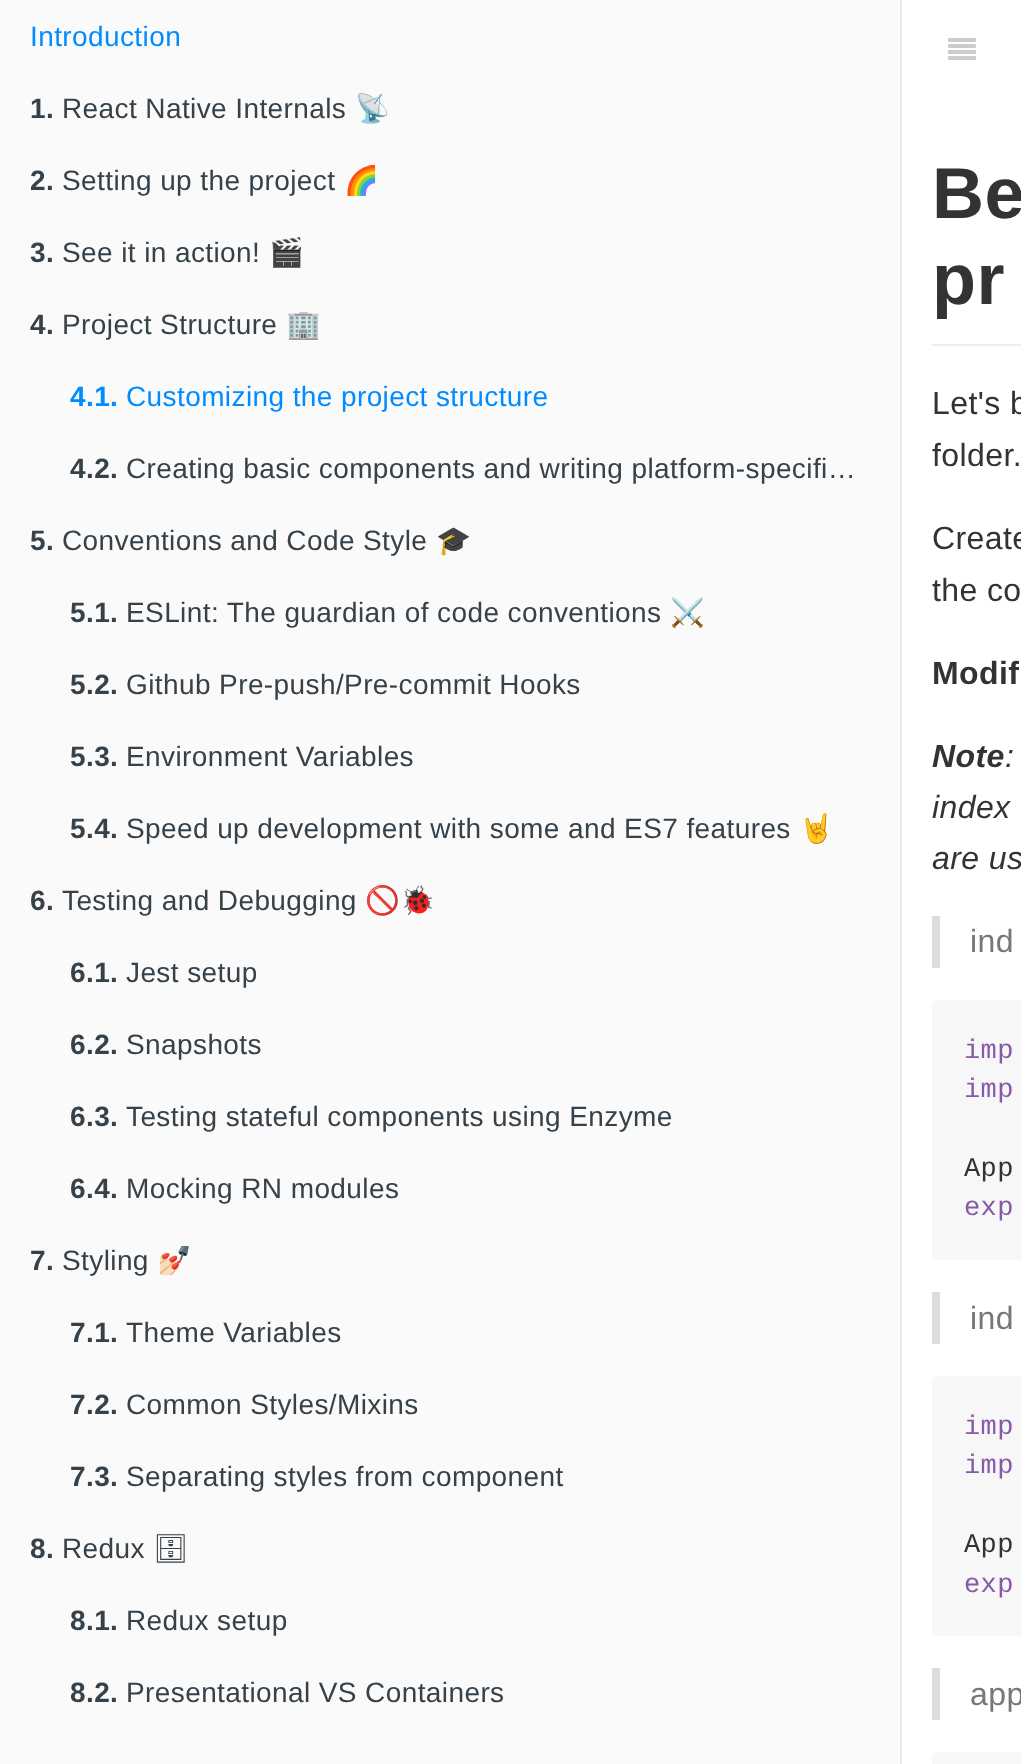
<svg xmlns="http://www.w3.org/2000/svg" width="1021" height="1764">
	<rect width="100%" height="100%" fill="#FFFFFF" />
	<rect x="0" y="0" width="900" height="1764" fill="#FAFAFA" />
	<rect x="900" y="0" width="2" height="1764" fill="#E9E9E9" />
	<text x="30" y="46" font-family="Liberation Sans" font-size="28" letter-spacing="0.4" fill="#008CFF">Introduction</text>
	<text x="30" y="118" font-family="Liberation Sans" font-size="28" font-weight="700" letter-spacing="0.4" fill="#364149">1.</text>
	<text x="62" y="118" font-family="Liberation Sans" font-size="28" letter-spacing="0.4" fill="#364149">React Native Internals</text>
	<text x="355" y="118" font-family="Noto Color Emoji" font-size="28" letter-spacing="0.4" fill="#364149">📡</text>
	<text x="30" y="190" font-family="Liberation Sans" font-size="28" font-weight="700" letter-spacing="0.4" fill="#364149">2.</text>
	<text x="62" y="190" font-family="Liberation Sans" font-size="28" letter-spacing="0.4" fill="#364149">Setting up the project</text>
	<text x="344" y="190" font-family="Noto Color Emoji" font-size="28" letter-spacing="0.4" fill="#364149">🌈</text>
	<text x="30" y="262" font-family="Liberation Sans" font-size="28" font-weight="700" letter-spacing="0.4" fill="#364149">3.</text>
	<text x="62" y="262" font-family="Liberation Sans" font-size="28" letter-spacing="0.4" fill="#364149">See it in action!</text>
	<text x="269" y="262" font-family="Noto Color Emoji" font-size="28" letter-spacing="0.4" fill="#364149">🎬</text>
	<text x="30" y="334" font-family="Liberation Sans" font-size="28" font-weight="700" letter-spacing="0.4" fill="#364149">4.</text>
	<text x="62" y="334" font-family="Liberation Sans" font-size="28" letter-spacing="0.4" fill="#364149">Project Structure</text>
	<text x="286" y="334" font-family="Noto Color Emoji" font-size="28" letter-spacing="0.4" fill="#364149">🏢</text>
	<text x="70" y="406" font-family="Liberation Sans" font-size="28" font-weight="700" letter-spacing="0.4" fill="#008CFF">4.1.</text>
	<text x="126" y="406" font-family="Liberation Sans" font-size="28" letter-spacing="0.4" fill="#008CFF">Customizing the project structure</text>
	<text x="70" y="478" font-family="Liberation Sans" font-size="28" font-weight="700" letter-spacing="0.4" fill="#364149">4.2.</text>
	<text x="126" y="478" font-family="Liberation Sans" font-size="28" letter-spacing="0.4" fill="#364149">Creating basic components and writing platform-specifi…</text>
	<text x="30" y="550" font-family="Liberation Sans" font-size="28" font-weight="700" letter-spacing="0.4" fill="#364149">5.</text>
	<text x="62" y="550" font-family="Liberation Sans" font-size="28" letter-spacing="0.4" fill="#364149">Conventions and Code Style</text>
	<text x="436" y="550" font-family="Noto Color Emoji" font-size="28" letter-spacing="0.4" fill="#364149">🎓</text>
	<text x="70" y="622" font-family="Liberation Sans" font-size="28" font-weight="700" letter-spacing="0.4" fill="#364149">5.1.</text>
	<text x="126" y="622" font-family="Liberation Sans" font-size="28" letter-spacing="0.4" fill="#364149">ESLint: The guardian of code conventions</text>
	<text x="670" y="622" font-family="Noto Color Emoji" font-size="28" letter-spacing="0.4" fill="#364149">⚔️</text>
	<text x="70" y="694" font-family="Liberation Sans" font-size="28" font-weight="700" letter-spacing="0.4" fill="#364149">5.2.</text>
	<text x="126" y="694" font-family="Liberation Sans" font-size="28" letter-spacing="0.4" fill="#364149">Github Pre-push/Pre-commit Hooks</text>
	<text x="70" y="766" font-family="Liberation Sans" font-size="28" font-weight="700" letter-spacing="0.4" fill="#364149">5.3.</text>
	<text x="126" y="766" font-family="Liberation Sans" font-size="28" letter-spacing="0.4" fill="#364149">Environment Variables</text>
	<text x="70" y="838" font-family="Liberation Sans" font-size="28" font-weight="700" letter-spacing="0.4" fill="#364149">5.4.</text>
	<text x="126" y="838" font-family="Liberation Sans" font-size="28" letter-spacing="0.4" fill="#364149">Speed up development with some and ES7 features</text>
	<text x="799" y="838" font-family="Noto Color Emoji" font-size="28" letter-spacing="0.4" fill="#364149">🤘</text>
	<text x="30" y="910" font-family="Liberation Sans" font-size="28" font-weight="700" letter-spacing="0.4" fill="#364149">6.</text>
	<text x="62" y="910" font-family="Liberation Sans" font-size="28" letter-spacing="0.4" fill="#364149">Testing and Debugging</text>
	<text x="365" y="910" font-family="Noto Color Emoji" font-size="28" letter-spacing="0.4" fill="#364149">🚫🐞</text>
	<text x="70" y="982" font-family="Liberation Sans" font-size="28" font-weight="700" letter-spacing="0.4" fill="#364149">6.1.</text>
	<text x="126" y="982" font-family="Liberation Sans" font-size="28" letter-spacing="0.4" fill="#364149">Jest setup</text>
	<text x="70" y="1054" font-family="Liberation Sans" font-size="28" font-weight="700" letter-spacing="0.4" fill="#364149">6.2.</text>
	<text x="126" y="1054" font-family="Liberation Sans" font-size="28" letter-spacing="0.4" fill="#364149">Snapshots</text>
	<text x="70" y="1126" font-family="Liberation Sans" font-size="28" font-weight="700" letter-spacing="0.4" fill="#364149">6.3.</text>
	<text x="126" y="1126" font-family="Liberation Sans" font-size="28" letter-spacing="0.4" fill="#364149">Testing stateful components using Enzyme</text>
	<text x="70" y="1198" font-family="Liberation Sans" font-size="28" font-weight="700" letter-spacing="0.4" fill="#364149">6.4.</text>
	<text x="126" y="1198" font-family="Liberation Sans" font-size="28" letter-spacing="0.4" fill="#364149">Mocking RN modules</text>
	<text x="30" y="1270" font-family="Liberation Sans" font-size="28" font-weight="700" letter-spacing="0.4" fill="#364149">7.</text>
	<text x="62" y="1270" font-family="Liberation Sans" font-size="28" letter-spacing="0.4" fill="#364149">Styling</text>
	<text x="157" y="1270" font-family="Noto Color Emoji" font-size="28" letter-spacing="0.4" fill="#364149">💅🏻</text>
	<text x="70" y="1342" font-family="Liberation Sans" font-size="28" font-weight="700" letter-spacing="0.4" fill="#364149">7.1.</text>
	<text x="126" y="1342" font-family="Liberation Sans" font-size="28" letter-spacing="0.4" fill="#364149">Theme Variables</text>
	<text x="70" y="1414" font-family="Liberation Sans" font-size="28" font-weight="700" letter-spacing="0.4" fill="#364149">7.2.</text>
	<text x="126" y="1414" font-family="Liberation Sans" font-size="28" letter-spacing="0.4" fill="#364149">Common Styles/Mixins</text>
	<text x="70" y="1486" font-family="Liberation Sans" font-size="28" font-weight="700" letter-spacing="0.4" fill="#364149">7.3.</text>
	<text x="126" y="1486" font-family="Liberation Sans" font-size="28" letter-spacing="0.4" fill="#364149">Separating styles from component</text>
	<text x="30" y="1558" font-family="Liberation Sans" font-size="28" font-weight="700" letter-spacing="0.4" fill="#364149">8.</text>
	<text x="62" y="1558" font-family="Liberation Sans" font-size="28" letter-spacing="0.4" fill="#364149">Redux</text>
	<text x="153" y="1558" font-family="Noto Emoji" font-size="28" letter-spacing="0.4" fill="#364149">🗄</text>
	<text x="70" y="1630" font-family="Liberation Sans" font-size="28" font-weight="700" letter-spacing="0.4" fill="#364149">8.1.</text>
	<text x="126" y="1630" font-family="Liberation Sans" font-size="28" letter-spacing="0.4" fill="#364149">Redux setup</text>
	<text x="70" y="1702" font-family="Liberation Sans" font-size="28" font-weight="700" letter-spacing="0.4" fill="#364149">8.2.</text>
	<text x="126" y="1702" font-family="Liberation Sans" font-size="28" letter-spacing="0.4" fill="#364149">Presentational VS Containers</text>
	<image x="948" y="38" width="28" height="22" href="assets/img1.png" />
	<rect x="932" y="344" width="89" height="2" fill="#EEEEEE" />
	<g font-family="Liberation Sans" font-size="72" font-weight="700" letter-spacing="0.4" fill="#333333">
		<text x="932" y="218">Be</text>
		<text x="932" y="304">pr</text>
	</g>
	<g font-family="Liberation Sans" font-size="32" letter-spacing="0.4" fill="#333333">
		<text x="932" y="414">Let's b</text>
		<text x="932" y="466">folder.</text>
		<text x="932" y="549">Create</text>
		<text x="932" y="601">the co</text>
	</g>
	<text x="932" y="684" font-family="Liberation Sans" font-size="32" font-weight="700" letter-spacing="0.4" fill="#333333">Modif</text>
	<text x="932" y="767" font-family="Liberation Sans" font-size="32" font-weight="700" font-style="italic" letter-spacing="0.4" fill="#333333">Note</text>
	<g font-family="Liberation Sans" font-size="32" font-style="italic" letter-spacing="0.4" fill="#333333">
		<text x="1005" y="767">:</text>
		<text x="932" y="818">index</text>
		<text x="932" y="869">are us</text>
	</g>
	<rect x="932" y="916" width="8" height="52" fill="#DDDDDD" />
	<text x="970" y="952" font-family="Liberation Sans" font-size="32" letter-spacing="0.4" fill="#777777">ind</text>
	<path d="M938 1000H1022V1260H938C934.5 1260 932 1257.5 932 1254V1006C932 1002.5 934.5 1000 938 1000Z" fill="#F7F7F7" />
	<g font-family="Liberation Mono" font-size="27" letter-spacing="0.4" fill="#8959A8">
		<text x="964" y="1058">imp</text>
		<text x="964" y="1097">imp</text>
	</g>
	<text x="964" y="1176" font-family="Liberation Mono" font-size="27" letter-spacing="0.4" fill="#333333">App</text>
	<text x="964" y="1215" font-family="Liberation Mono" font-size="27" letter-spacing="0.4" fill="#8959A8">exp</text>
	<rect x="932" y="1292" width="8" height="52" fill="#DDDDDD" />
	<text x="970" y="1329" font-family="Liberation Sans" font-size="32" letter-spacing="0.4" fill="#777777">ind</text>
	<path d="M938 1376H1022V1636H938C934.5 1636 932 1633.5 932 1630V1382C932 1378.5 934.5 1376 938 1376Z" fill="#F7F7F7" />
	<g font-family="Liberation Mono" font-size="27" letter-spacing="0.4" fill="#8959A8">
		<text x="964" y="1434">imp</text>
		<text x="964" y="1473">imp</text>
	</g>
	<text x="964" y="1552" font-family="Liberation Mono" font-size="27" letter-spacing="0.4" fill="#333333">App</text>
	<text x="964" y="1592" font-family="Liberation Mono" font-size="27" letter-spacing="0.4" fill="#8959A8">exp</text>
	<rect x="932" y="1668" width="8" height="52" fill="#DDDDDD" />
	<text x="970" y="1705" font-family="Liberation Sans" font-size="32" letter-spacing="0.4" fill="#777777">app</text>
	<path d="M938 1752H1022V1764H932V1758C932 1754.5 934.5 1752 938 1752Z" fill="#F7F7F7" />
</svg>
